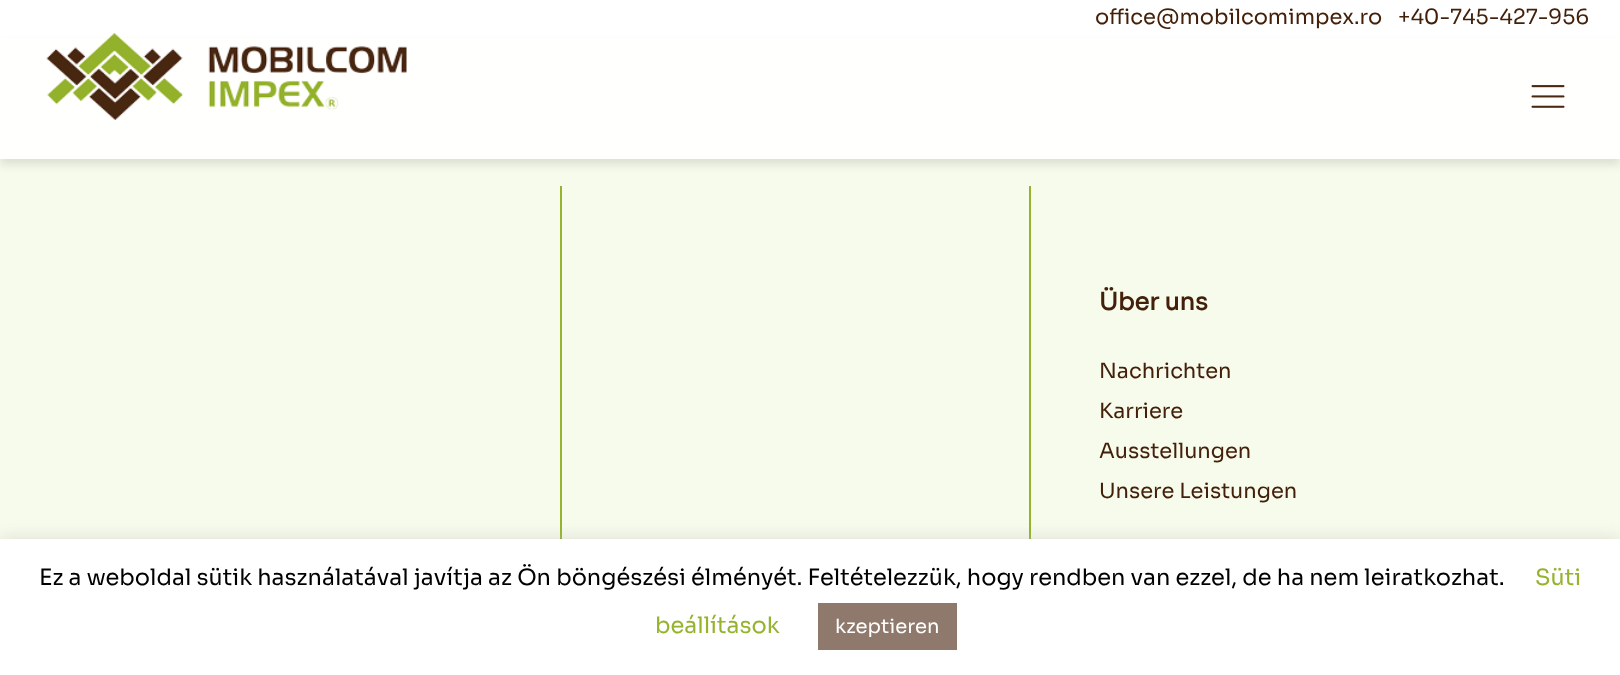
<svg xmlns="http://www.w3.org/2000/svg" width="1620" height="675">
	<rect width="100%" height="100%" fill="#F7FBEC" />
	<rect x="0" y="0" width="1620" height="38" fill="#FFFFFF" />
	<g font-family="Sora" font-size="21" fill="#43200A">
		<text x="1095" y="24">office@mobilcomimpex.ro</text>
		<text x="1398" y="24">+40-745-427-956</text>
	</g>
	<rect x="0" y="44" width="1620" height="121" fill="#000000" fill-opacity="0.1" filter="blur(4px)" />
	<rect x="0" y="38" width="1620" height="121" fill="#FFFFFE" />
	<image x="46" y="33" width="361" height="87" href="assets/img1.png" />
	<image x="1531" y="85" width="34" height="23" href="assets/img2.png" />
	<rect x="560" y="186" width="2" height="353" fill="#95B32D" />
	<rect x="1029" y="186" width="2" height="353" fill="#95B32D" />
	<text x="1099" y="310" font-family="Sora" font-size="24" font-weight="700" fill="#43200A">Über uns</text>
	<g font-family="Sora" font-size="21" fill="#43200A">
		<text x="1099" y="378">Nachrichten</text>
		<text x="1099" y="418">Karriere</text>
		<text x="1099" y="458">Ausstellungen</text>
		<text x="1099" y="498">Unsere Leistungen</text>
	</g>
	<rect x="0" y="537" width="1620" height="137" fill="#ACABAB" fill-opacity="0.3" filter="blur(7.5px)" />
	<rect x="0" y="539" width="1620" height="136" fill="#FFFFFF" />
	<text x="39" y="585" font-family="Sora" font-size="22.5" fill="#000000">Ez a weboldal sütik használatával javítja az Ön böngészési élményét. Feltételezzük, hogy rendben van ezzel, de ha nem leiratkozhat.</text>
	<g font-family="Sora" font-size="22.5" fill="#95B32D">
		<text x="1535" y="585">Süti</text>
		<text x="655" y="633">beállítások</text>
	</g>
	<rect x="818" y="603" width="139" height="47" fill="#8F796C" />
	<text x="835" y="633" font-family="Sora" font-size="19.5" fill="#FFFFFF">kzeptieren</text>
</svg>
